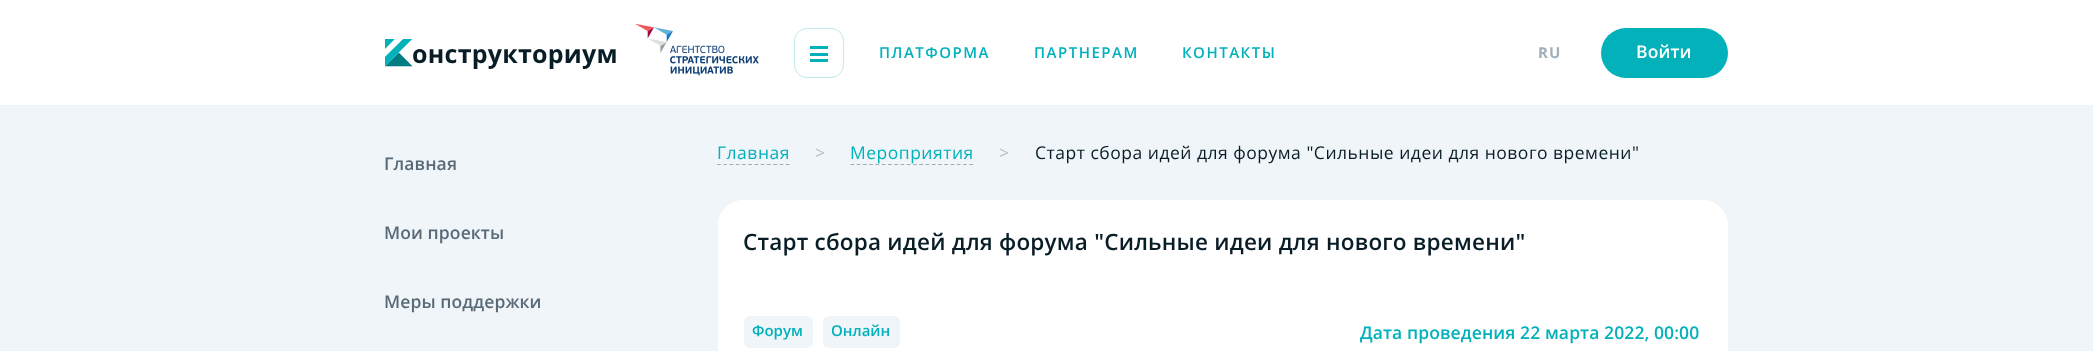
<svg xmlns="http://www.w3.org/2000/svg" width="2093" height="351">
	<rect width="100%" height="100%" fill="#F0F5FA" />
	<rect x="0" y="0" width="2093" height="105" fill="#FFFFFF" />
	<image x="385" y="39" width="28" height="28" href="assets/img1.png" />
	<text x="412" y="63" font-family="Open Sans" font-size="25" font-weight="700" letter-spacing="0.25" fill="#091D27">онструкториум</text>
	<image x="635" y="24" width="124" height="52" href="assets/img2.png" />
	<rect x="794.5" y="28.5" width="49" height="49" rx="12.5" fill="none" stroke="#C4E9EB" />
	<rect x="810" y="46" width="18" height="3" fill="#02B1BA" />
	<rect x="810" y="53" width="18" height="3" fill="#02B1BA" />
	<rect x="810" y="59" width="18" height="3" fill="#02B1BA" />
	<g font-family="Open Sans" font-size="15" font-weight="600" letter-spacing="1.5" fill="#02B1BA">
		<text x="879" y="58">ПЛАТФОРМА</text>
		<text x="1034" y="58">ПАРТНЕРАМ</text>
		<text x="1182" y="58">КОНТАКТЫ</text>
	</g>
	<text x="1538" y="58" font-family="Open Sans" font-size="15" font-weight="700" letter-spacing="1" fill="#A0AEB9">RU</text>
	<rect x="1601" y="28" width="127" height="50" rx="25" fill="#02B1BA" />
	<text x="1636" y="58" font-family="Open Sans" font-size="17.5" font-weight="600" letter-spacing="0.1" fill="#FFFFFF">Войти</text>
	<g font-family="Open Sans" font-size="17.5" font-weight="600" letter-spacing="0.1" fill="#596A77">
		<text x="384" y="170">Главная</text>
		<text x="384" y="239">Мои проекты</text>
		<text x="384" y="308">Меры поддержки</text>
	</g>
	<text x="717" y="159" font-family="Open Sans" font-size="17.5" letter-spacing="0.5" fill="#02B1BA">Главная</text>
	<path d="M717 164.5H790" fill="none" stroke="#A0AEB9" stroke-width="1.2" stroke-dasharray="3.75 2.5" />
	<text x="815" y="159" font-family="Open Sans" font-size="17.5" letter-spacing="0.5" fill="#B4BDC6">&gt;</text>
	<path d="M850.5 164.5H974" fill="none" stroke="#A0AEB9" stroke-width="1.2" stroke-dasharray="3.75 2.5" />
	<text x="850" y="159" font-family="Open Sans" font-size="17.5" letter-spacing="0.5" fill="#02B1BA">Мероприятия</text>
	<text x="999" y="159" font-family="Open Sans" font-size="17.5" letter-spacing="0.5" fill="#B4BDC6">&gt;</text>
	<text x="1035" y="159" font-family="Open Sans" font-size="17.5" letter-spacing="0.5" fill="#091D27">Старт сбора идей для форума "Сильные идеи для нового времени"</text>
	<rect x="718" y="200" width="1010" height="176" rx="25" fill="#FFFFFF" />
	<text x="743" y="250" font-family="Open Sans" font-size="22.5" font-weight="600" letter-spacing="0.22" fill="#091D27">Старт сбора идей для форума "Сильные идеи для нового времени"</text>
	<rect x="744" y="316" width="69" height="32" rx="6" fill="#F0F5FA" />
	<text x="752" y="336" font-family="Open Sans" font-size="15" font-weight="600" fill="#02B1BA">Форум</text>
	<rect x="823" y="316" width="77" height="32" rx="6" fill="#F0F5FA" />
	<text x="831" y="336" font-family="Open Sans" font-size="15" font-weight="600" fill="#02B1BA">Онлайн</text>
	<text x="1360" y="339" font-family="Open Sans" font-size="17.5" font-weight="600" letter-spacing="0.1" fill="#02B1BA">Дата проведения 22 марта 2022, 00:00</text>
</svg>
